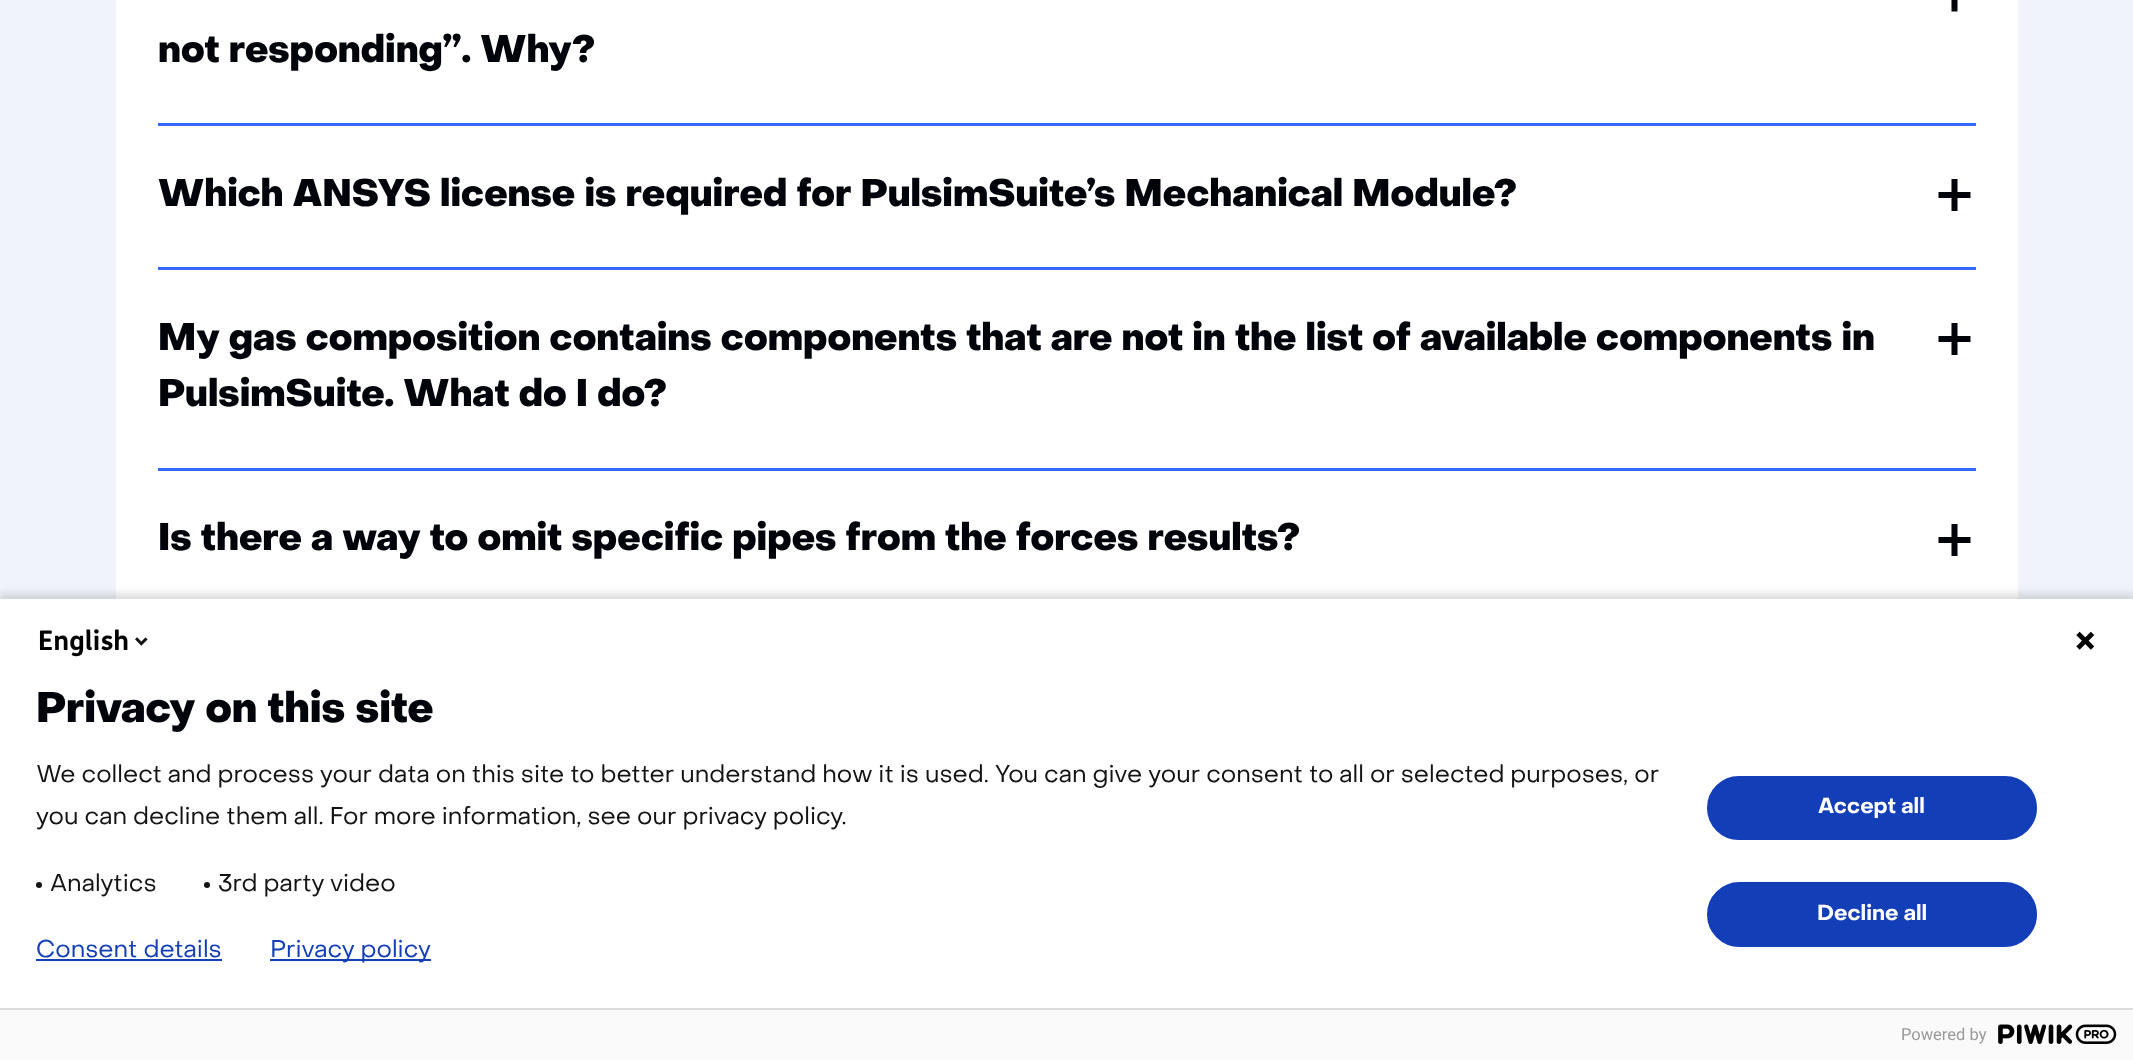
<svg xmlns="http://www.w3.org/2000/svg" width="2133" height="1060">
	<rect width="100%" height="100%" fill="#F0F3FA" />
	<rect x="116" y="0" width="1902" height="599" fill="#FFFFFF" />
	<rect x="158" y="123" width="1818" height="3" fill="#3369FF" />
	<path d="M1957.5 11.5V-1.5H1970.5V-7.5H1957.5V-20.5H1951.5V-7.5H1938.5V-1.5H1951.5V11.5Z" fill="#00030A" />
	<text x="158" y="62" font-family="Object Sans" font-size="37.8" font-weight="900" fill="#00030A">not responding”. Why?</text>
	<rect x="158" y="267" width="1818" height="3" fill="#3369FF" />
	<text x="158" y="206" font-family="Object Sans" font-size="37.8" font-weight="900" fill="#00030A">Which ANSYS license is required for PulsimSuite’s Mechanical Module?</text>
	<path d="M1957.5 211V198H1970.5V192H1957.5V179H1951.5V192H1938.5V198H1951.5V211Z" fill="#00030A" />
	<rect x="158" y="468" width="1818" height="3" fill="#3369FF" />
	<text x="158" y="350" font-family="Object Sans" font-size="37.8" font-weight="900" fill="#00030A">My gas composition contains components that are not in the list of available components in</text>
	<path d="M1957.5 355V342H1970.5V336H1957.5V323H1951.5V336H1938.5V342H1951.5V355Z" fill="#00030A" />
	<g font-family="Object Sans" font-size="37.8" font-weight="900" fill="#00030A">
		<text x="158" y="406">PulsimSuite. What do I do?</text>
		<text x="158" y="550">Is there a way to omit specific pipes from the forces results?</text>
	</g>
	<path d="M1957.5 556V543H1970.5V537H1957.5V524H1951.5V537H1938.5V543H1951.5V556Z" fill="#00030A" />
	<rect x="-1" y="594" width="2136" height="465" fill="#000000" fill-opacity="0.14" filter="blur(4px)" />
	<rect x="0" y="599" width="2133" height="409" fill="#FFFFFF" />
	<text x="38" y="650" font-family="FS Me" font-size="27" font-weight="700" fill="#000000">English</text>
	<image x="135" y="637" width="13" height="9" href="assets/img1.png" />
	<image x="2076" y="631" width="19" height="19" href="assets/img2.png" />
	<text x="36" y="722" font-family="Object Sans" font-size="42" font-weight="900" fill="#00030A">Privacy on this site</text>
	<g font-family="Object Sans" font-size="24" fill="#131313">
		<text x="36" y="782">We collect and process your data on this site to better understand how it is used. You can give your consent to all or selected purposes, or</text>
		<text x="36" y="824">you can decline them all. For more information, see our privacy policy.</text>
	</g>
	<circle cx="39" cy="885" r="3" fill="#131313" />
	<text x="50" y="891" font-family="Object Sans" font-size="24" fill="#131313">Analytics</text>
	<circle cx="207" cy="885" r="3" fill="#131313" />
	<text x="218" y="891" font-family="Object Sans" font-size="24" fill="#131313">3rd party video</text>
	<rect x="1708" y="777" width="328" height="62" rx="31" fill="#123EB7" stroke="#123EB7" stroke-width="2" />
	<text x="1818" y="813" font-family="Object Sans" font-size="21.5" font-weight="700" fill="#FFFFFF">Accept all</text>
	<rect x="1708" y="883" width="328" height="63" rx="31.5" fill="#123EB7" stroke="#123EB7" stroke-width="2" />
	<text x="1817" y="920" font-family="Object Sans" font-size="21.5" font-weight="700" fill="#FFFFFF">Decline all</text>
	<text x="36" y="957" font-family="Object Sans" font-size="24" fill="#123EB7">Consent details</text>
	<rect x="36" y="959" width="186" height="2" fill="#123EB7" />
	<rect x="270" y="959" width="161" height="2" fill="#123EB7" />
	<text x="270" y="957" font-family="Object Sans" font-size="24" fill="#123EB7">Privacy policy</text>
	<rect x="0" y="1010" width="2133" height="50" fill="#FAFAFA" />
	<rect x="0" y="1008" width="2133" height="2" fill="#DDDDDD" />
	<text x="1901" y="1040" font-family="Roboto" font-size="16.5" fill="#999999">Powered by</text>
	<image x="1998" y="1024" width="119" height="20" href="assets/img3.png" />
</svg>
